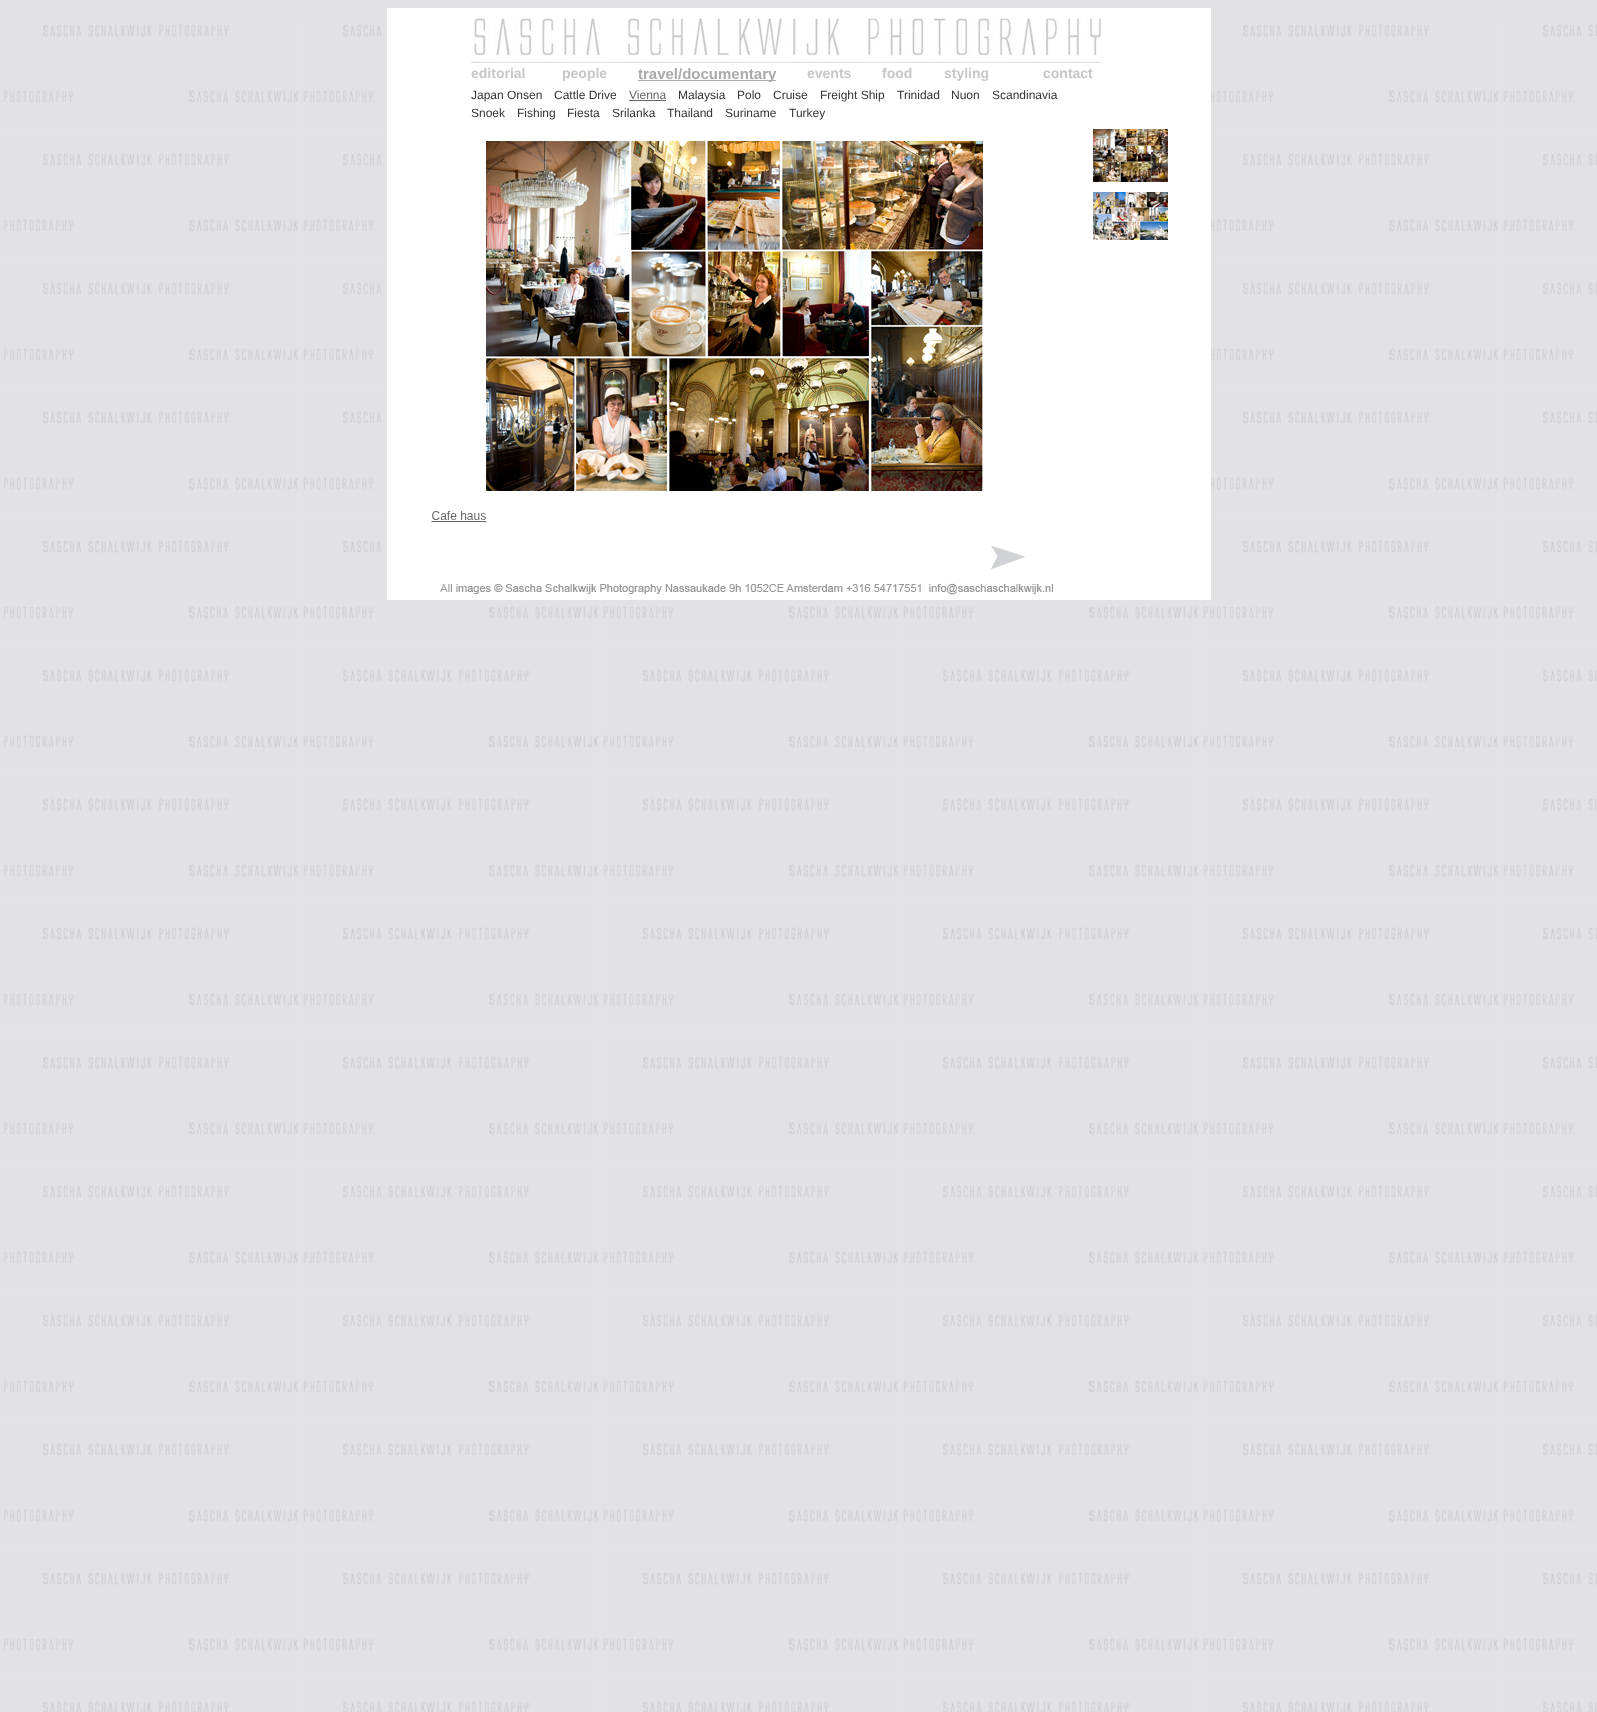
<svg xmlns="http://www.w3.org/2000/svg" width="1597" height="1712">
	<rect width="100%" height="100%" fill="#E2E2E4" />
	<image x="4" y="24" width="1593" height="1688" href="assets/img1.png" />
	<rect x="387" y="8" width="824" height="113" fill="#FFFFFF" />
	<image x="471" y="18" width="630" height="45" href="assets/img2.png" />
	<g font-family="Liberation Sans" font-size="14" font-weight="700" fill="#C7C7C7">
		<text x="471" y="78">editorial</text>
		<text x="562" y="78">people</text>
	</g>
	<rect x="638" y="80" width="138" height="1" fill="#AAAAAA" />
	<text x="638" y="79" font-family="Liberation Sans" font-size="15" font-weight="700" fill="#AAAAAA">travel/documentary</text>
	<g font-family="Liberation Sans" font-size="14" font-weight="700" fill="#C7C7C7">
		<text x="807" y="78">events</text>
		<text x="882" y="78">food</text>
		<text x="944" y="78">styling</text>
		<text x="1043" y="78">contact</text>
	</g>
	<g font-family="Liberation Sans" font-size="12" fill="#333333">
		<text x="471" y="99">Japan Onsen</text>
		<text x="554" y="99">Cattle Drive</text>
	</g>
	<text x="629" y="99" font-family="Liberation Sans" font-size="12" fill="#666666">Vienna</text>
	<rect x="629" y="100" width="37" height="1" fill="#666666" />
	<g font-family="Liberation Sans" font-size="12" fill="#333333">
		<text x="678" y="99">Malaysia</text>
		<text x="737" y="99">Polo</text>
		<text x="773" y="99">Cruise</text>
		<text x="820" y="99">Freight Ship</text>
		<text x="897" y="99">Trinidad</text>
		<text x="951" y="99">Nuon</text>
		<text x="992" y="99">Scandinavia</text>
		<text x="471" y="117">Snoek</text>
		<text x="517" y="117">Fishing</text>
		<text x="567" y="117">Fiesta</text>
		<text x="612" y="117">Srilanka</text>
		<text x="667" y="117">Thailand</text>
		<text x="725" y="117">Suriname</text>
		<text x="789" y="117">Turkey</text>
	</g>
	<rect x="387" y="121" width="824" height="479" fill="#FFFFFF" />
	<image x="431" y="141" width="595" height="429" href="assets/img3.png" />
	<image x="1093" y="129" width="75" height="111" href="assets/img4.png" />
	<image x="440" y="583" width="613" height="12" href="assets/img5.png" />
</svg>
